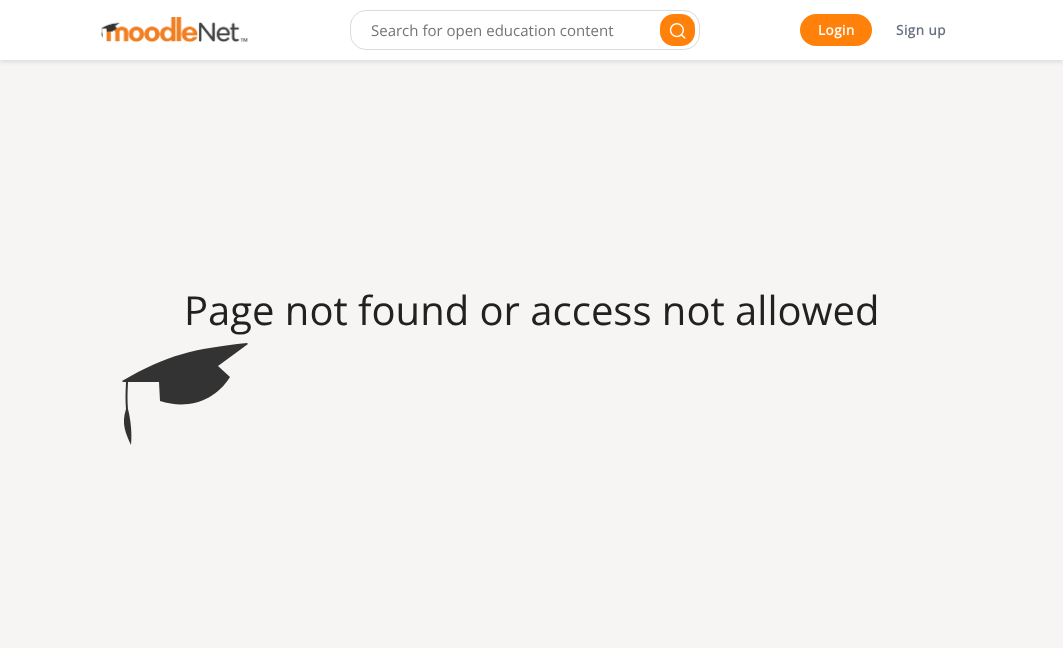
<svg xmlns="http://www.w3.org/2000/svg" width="1063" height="648">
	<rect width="100%" height="100%" fill="#F6F5F4" />
	<rect x="0" y="2" width="1063" height="60" fill="#000000" fill-opacity="0.1" filter="blur(2px)" />
	<rect x="0" y="0" width="1063" height="60" fill="#FFFFFF" />
	<image x="101" y="17" width="147" height="26" href="assets/img1.png" />
	<rect x="350.5" y="10.5" width="349" height="39" rx="15.5" fill="none" stroke="#DBDBDB" />
	<text x="371" y="36" font-family="Open Sans" font-size="15" fill="#757575">Search for open education content</text>
	<rect x="660" y="14" width="35" height="32" rx="14" fill="#FF810A" />
	<image x="669" y="23" width="17" height="16" href="assets/img2.png" />
	<rect x="800" y="14" width="72" height="32" rx="16" fill="#FF810A" />
	<text x="818" y="35" font-family="Open Sans" font-size="13.5" font-weight="700" letter-spacing="0.5" fill="#FFFFFF">Login</text>
	<text x="896" y="35" font-family="Open Sans" font-size="13.5" font-weight="700" letter-spacing="0.5" fill="#687082">Sign up</text>
	<text x="184" y="325" font-family="Open Sans" font-size="40" fill="#212121">Page not found or access not allowed</text>
	<path d="M218 366L248 344L247 343C193 349 169 354 122 381L123 382H126C126 386 125 395 126 409C121 424 126 434 131 445C132 434 131 421 128 409C127 395 128 386 128 382H159L160 401C188 410 215 401 230 377Z" fill="#333333" />
</svg>
